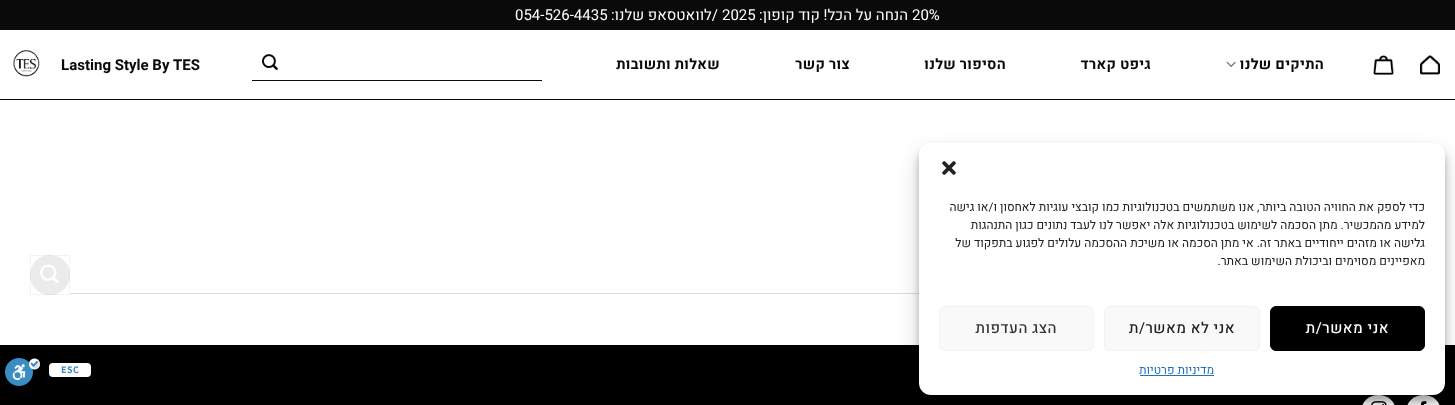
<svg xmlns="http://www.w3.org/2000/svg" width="1455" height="405">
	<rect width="100%" height="100%" fill="#FFFFFF" />
	<rect x="0" y="0" width="1455" height="30" fill="#0A0A0A" />
	<text x="912" y="20" font-family="Heebo" font-size="15" fill="#FFFFFF">20%</text>
	<text x="908" y="20" font-family="Heebo" font-size="15" direction="rtl" fill="#FFFFFF">הנחה על הכל! קוד קופון:</text>
	<text x="722" y="20" font-family="Heebo" font-size="15" fill="#FFFFFF">2025</text>
	<text x="718" y="20" font-family="Heebo" font-size="15" direction="rtl" fill="#FFFFFF">/לוואטסאפ שלנו:</text>
	<text x="515" y="20" font-family="Heebo" font-size="15" fill="#FFFFFF">054-526-4435</text>
	<rect x="0" y="99" width="1455" height="1" fill="#0A0A0A" />
	<image x="1420" y="55" width="20" height="20" href="assets/img1.png" />
	<image x="1373" y="55" width="21" height="20" href="assets/img2.png" />
	<text x="1324" y="69" font-family="Heebo" font-size="14.5" font-weight="700" letter-spacing="0.25" direction="rtl" fill="#0A0A0A">התיקים שלנו</text>
	<image x="1226" y="61" width="10" height="6" href="assets/img3.png" />
	<g font-family="Heebo" font-size="14.5" font-weight="700" letter-spacing="0.25" direction="rtl" fill="#0A0A0A">
		<text x="1151" y="69">גיפט קארד</text>
		<text x="1006" y="69">הסיפור שלנו</text>
		<text x="850" y="69">צור קשר</text>
		<text x="720" y="69">שאלות ותשובות</text>
	</g>
	<image x="262" y="54" width="16" height="16" href="assets/img4.png" />
	<rect x="252" y="80" width="290" height="1" fill="#0A0A0A" />
	<text x="61" y="70" font-family="Heebo" font-size="15" font-weight="700" fill="#0A0A0A">Lasting Style By TES</text>
	<image x="13" y="49" width="27" height="28" href="assets/img5.png" />
	<rect x="70" y="293" width="849" height="1" fill="#DDDDDD" />
	<circle cx="50" cy="275" r="20" fill="#EBEBEB" />
	<rect x="30.5" y="255.5" width="39" height="39" fill="none" stroke="#000000" stroke-opacity="0.05" />
	<image x="40" y="264" width="19" height="19" href="assets/img6.png" />
	<rect x="0" y="345" width="1455" height="60" fill="#000000" />
	<rect x="1407" y="395" width="33" height="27" rx="16.5" fill="#FFFFFF" />
	<image x="1420" y="401" width="7" height="4" href="assets/img7.png" />
	<rect x="1362" y="395" width="33" height="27" rx="16.5" fill="#FFFFFF" />
	<image x="1371" y="401" width="16" height="4" href="assets/img8.png" />
	<rect x="919" y="149" width="526" height="252" rx="12" fill="#000000" fill-opacity="0.23" filter="blur(3px)" />
	<rect x="919" y="153" width="526" height="252" rx="12" fill="#000000" fill-opacity="0.19" filter="blur(10px)" />
	<rect x="919" y="143" width="526" height="252" rx="12" fill="#FFFFFF" />
	<image x="942" y="161" width="14" height="14" href="assets/img9.png" />
	<g font-family="Heebo" font-size="12" direction="rtl" fill="#222222">
		<text x="1425" y="211">כדי לספק את החוויה הטובה ביותר, אנו משתמשים בטכנולוגיות כמו קובצי עוגיות לאחסון ו/או גישה</text>
		<text x="1425" y="229">למידע מהמכשיר. מתן הסכמה לשימוש בטכנולוגיות אלה יאפשר לנו לעבד נתונים כגון התנהגות</text>
		<text x="1425" y="247">גלישה או מזהים ייחודיים באתר זה. אי מתן הסכמה או משיכת ההסכמה עלולים לפגוע בתפקוד של</text>
		<text x="1425" y="265">מאפיינים מסוימים וביכולת השימוש באתר.</text>
	</g>
	<rect x="1270.5" y="306.5" width="154" height="44" rx="5.5" fill="#000000" stroke="#000000" />
	<text x="1389" y="333" font-family="Heebo" font-size="15" font-weight="500" letter-spacing="0.5" direction="rtl" fill="#FFFFFF">אני מאשר/ת</text>
	<rect x="1104.5" y="306.5" width="155" height="44" rx="5.5" fill="#F9F9F9" stroke="#F2F2F2" />
	<text x="1235" y="333" font-family="Heebo" font-size="15" font-weight="500" letter-spacing="0.5" direction="rtl" fill="#222222">אני לא מאשר/ת</text>
	<rect x="939.5" y="306.5" width="154" height="44" rx="5.5" fill="#F9F9F9" stroke="#F2F2F2" />
	<text x="1057" y="333" font-family="Heebo" font-size="15" font-weight="500" letter-spacing="0.5" direction="rtl" fill="#333333">הצג העדפות</text>
	<text x="1214" y="374" font-family="Heebo" font-size="12" direction="rtl" fill="#1E73BE">מדיניות פרטיות</text>
	<rect x="1140" y="375" width="74" height="1" fill="#1E73BE" />
	<rect x="49" y="363" width="42" height="14" rx="4" fill="#FFFFFF" />
	<text x="61" y="373" font-family="Assistant" font-size="10" font-weight="700" letter-spacing="0.5" fill="#3A8DC2">ESC</text>
	<image x="5" y="358" width="35" height="28" href="assets/img10.png" />
</svg>
